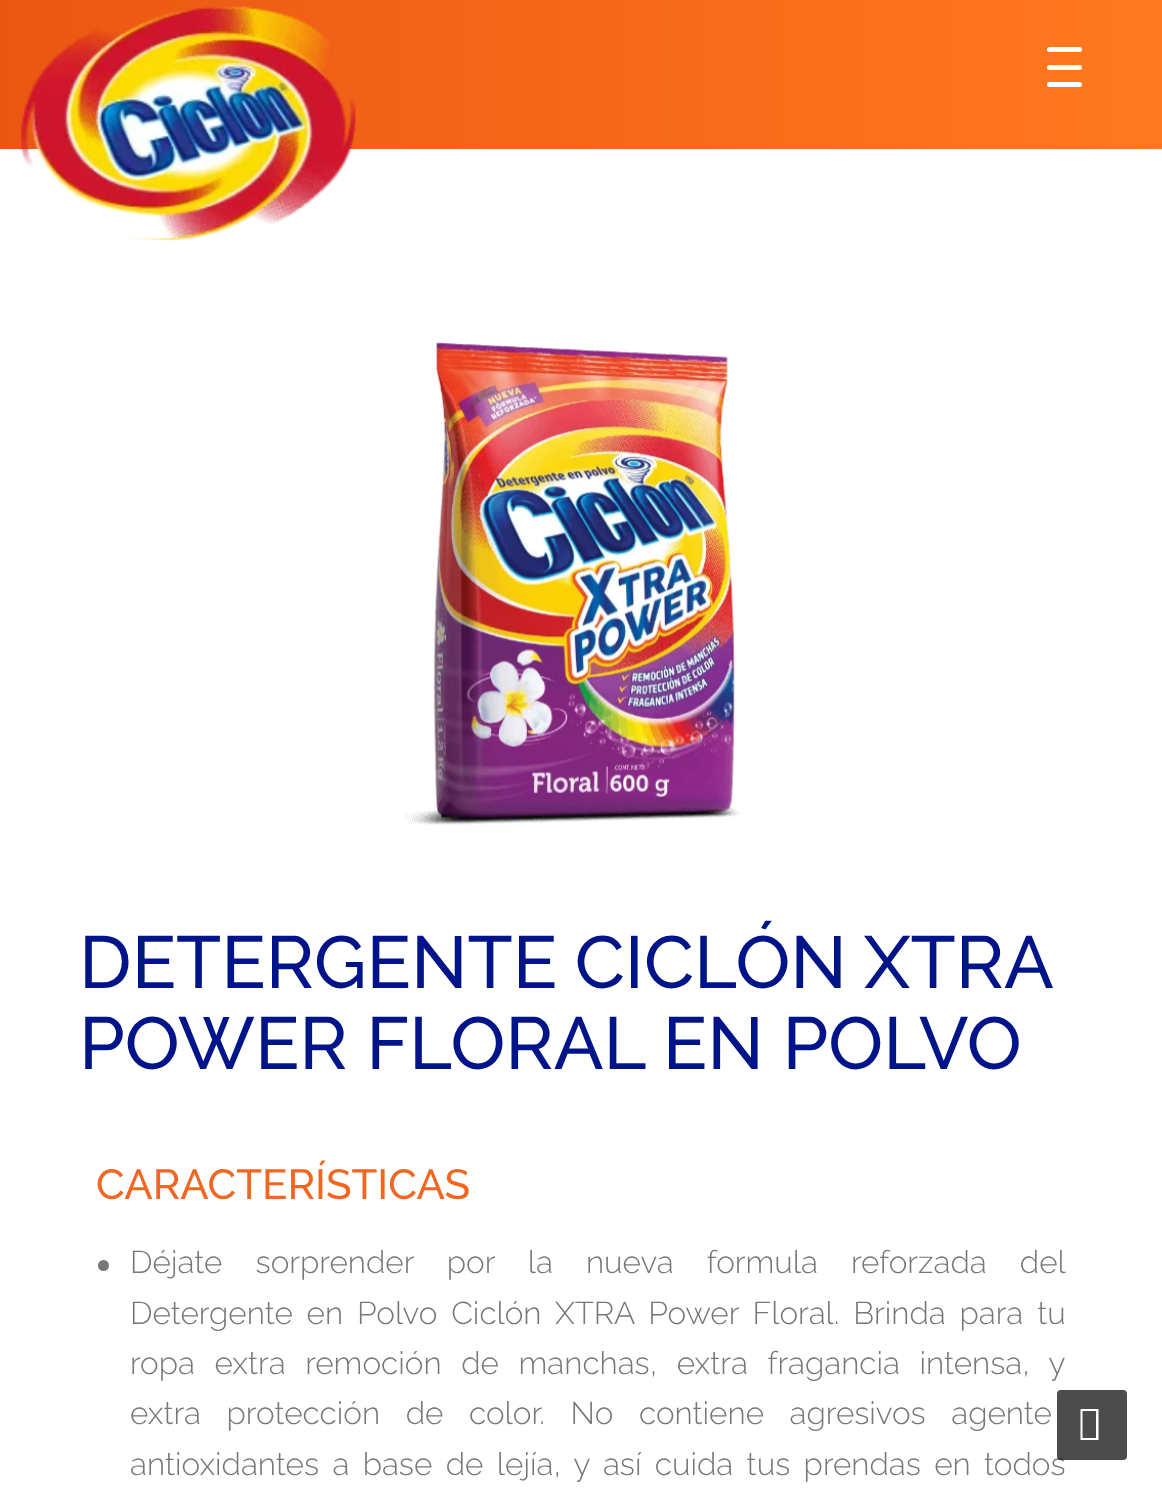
<svg xmlns="http://www.w3.org/2000/svg" width="1162" height="1494">
	<defs>
		<linearGradient id="g1" gradientUnits="userSpaceOnUse" x1="0" y1="74" x2="1162" y2="74"><stop offset="0" stop-color="#EB5712" /><stop offset="1" stop-color="#FF791F" /></linearGradient>
	</defs>
	<rect width="100%" height="100%" fill="#FFFFFF" />
	<rect x="0" y="0" width="1162" height="149" fill="url(#g1)" />
	<rect x="1047" y="65" width="35" height="5" rx="2.5" fill="#FFFFFF" />
	<rect x="1047" y="47" width="35" height="5" rx="2.5" fill="#FFFFFF" />
	<rect x="1047" y="82" width="35" height="5" rx="2.5" fill="#FFFFFF" />
	<image x="20" y="6" width="336" height="235" href="assets/img1.png" />
	<image x="403" y="342" width="338" height="483" href="assets/img2.png" />
	<g font-family="Raleway" font-size="73.5" font-weight="500" fill="#001489">
		<text x="79" y="988" word-spacing="-1">DETERGENTE CICLÓN XTRA</text>
		<text x="79" y="1069">POWER FLORAL EN POLVO</text>
	</g>
	<text x="96" y="1199" font-family="Raleway" font-size="42" font-weight="500" fill="#F16722">CARACTERÍSTICAS</text>
	<circle cx="103.5" cy="1265.5" r="5.5" fill="#777777" />
	<g font-family="Raleway" font-size="31.5" font-weight="300" fill="#777777">
		<text x="130" y="1273" word-spacing="25">Déjate sorprender por la nueva formula reforzada del</text>
		<text x="130" y="1324" word-spacing="5.75">Detergente en Polvo Ciclón XTRA Power Floral. Brinda para tu</text>
		<text x="130" y="1374" word-spacing="11.5">ropa extra remoción de manchas, extra fragancia intensa, y</text>
		<text x="130" y="1424" word-spacing="17.5">extra protección de color. No contiene agresivos agente</text>
		<text x="130" y="1475" word-spacing="5.25">antioxidantes a base de lejía, y así cuida tus prendas en todos</text>
	</g>
	<rect x="1057" y="1390" width="70" height="70" rx="4" fill="#000000" fill-opacity="0.7" />
	<path d="M1080.5 1440V1409H1098.5V1440ZM1082.5 1438H1096V1411H1082.5Z" fill="#FFFFFF" />
</svg>
